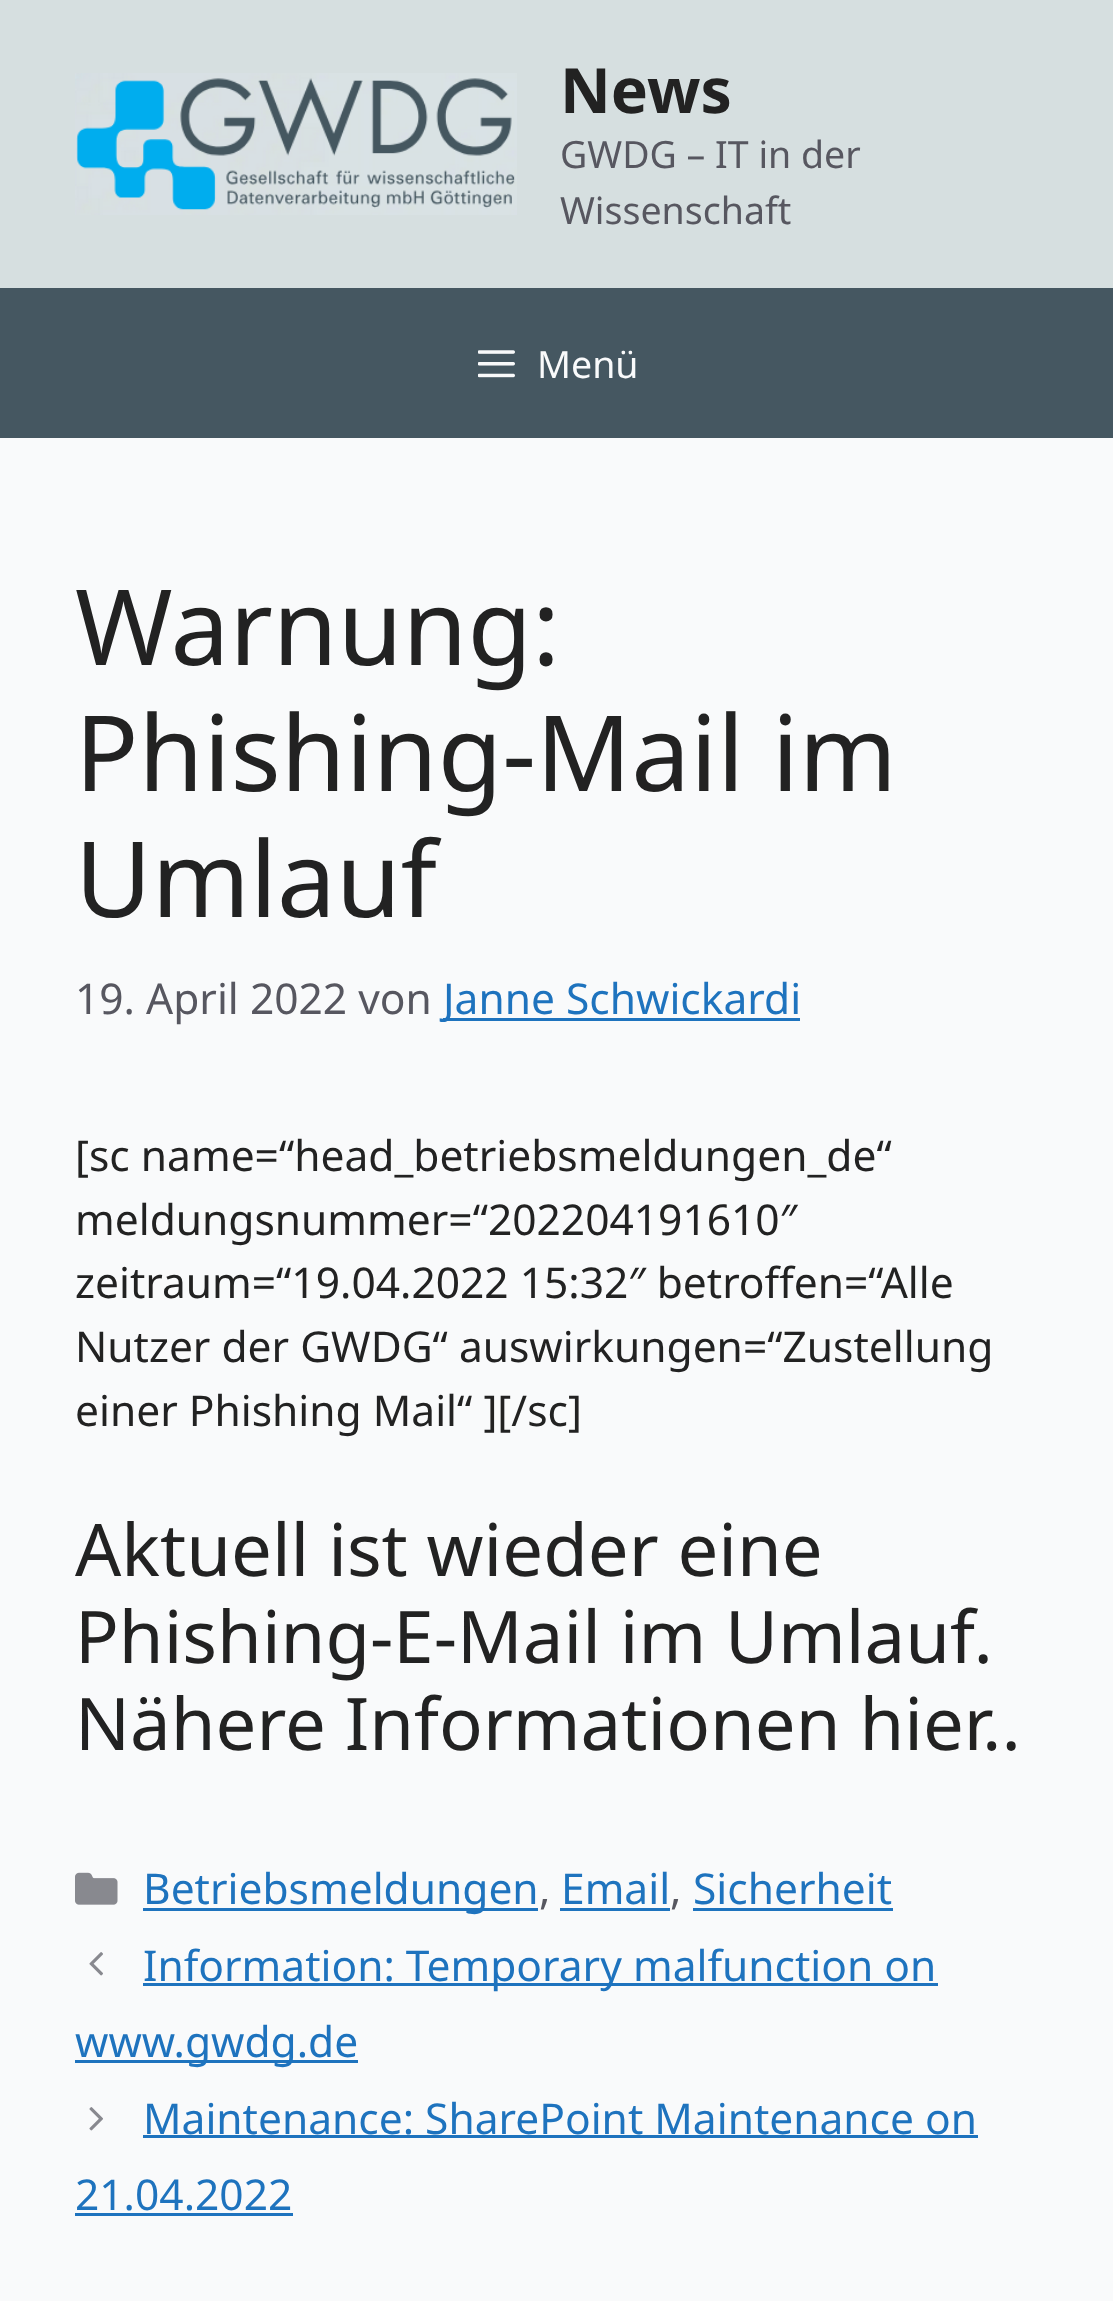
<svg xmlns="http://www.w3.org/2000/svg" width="1113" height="2301">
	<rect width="100%" height="100%" fill="#F9FAFB" />
	<rect x="0" y="0" width="1113" height="288" fill="#D6DFE0" />
	<image x="75" y="73" width="442" height="142" href="assets/img1.png" />
	<text x="560" y="113" font-family="Noto Sans" font-size="62.5" font-weight="700" fill="#222222">News</text>
	<g font-family="Noto Sans" font-size="37.5" fill="#575760">
		<text x="560" y="168">GWDG – IT in der</text>
		<text x="560" y="224">Wissenschaft</text>
	</g>
	<rect x="0" y="288" width="1113" height="150" fill="#455761" />
	<image x="478" y="350" width="37" height="28" href="assets/img2.png" />
	<text x="537" y="378" font-family="Noto Sans" font-size="37.5" fill="#F9FAFB">Menü</text>
	<g font-family="Noto Sans" font-size="105" fill="#222222">
		<text x="75" y="665">Warnung:</text>
		<text x="75" y="791">Phishing-Mail im</text>
		<text x="75" y="917">Umlauf</text>
	</g>
	<text x="75" y="1014" font-family="Noto Sans" font-size="42.5" fill="#575760">19. April 2022 von</text>
	<rect x="443" y="1018" width="357" height="3" fill="#1E73BE" />
	<text x="443" y="1014" font-family="Noto Sans" font-size="42.5" fill="#1E73BE">Janne Schwickardi</text>
	<g font-family="Noto Sans" font-size="42.5" fill="#222222">
		<text x="75" y="1171">[sc name=“head_betriebsmeldungen_de“</text>
		<text x="75" y="1235">meldungsnummer=“202204191610″</text>
		<text x="75" y="1298">zeitraum=“19.04.2022 15:32″ betroffen=“Alle</text>
		<text x="75" y="1362">Nutzer der GWDG“ auswirkungen=“Zustellung</text>
		<text x="75" y="1426">einer Phishing Mail“ ][/sc]</text>
	</g>
	<g font-family="Noto Sans" font-size="72.5" fill="#222222">
		<text x="75" y="1576">Aktuell ist wieder eine</text>
		<text x="75" y="1663">Phishing-E-Mail im Umlauf.</text>
		<text x="75" y="1750">Nähere Informationen hier</text>
		<text x="982" y="1750">..</text>
	</g>
	<image x="75" y="1872" width="43" height="33" href="assets/img3.png" />
	<rect x="143" y="1908" width="395" height="3" fill="#1E73BE" />
	<text x="143" y="1904" font-family="Noto Sans" font-size="42.5" fill="#1E73BE">Betriebsmeldungen</text>
	<text x="539" y="1904" font-family="Noto Sans" font-size="42.5" fill="#575760">,</text>
	<text x="561" y="1904" font-family="Noto Sans" font-size="42.5" fill="#1E73BE">Email</text>
	<rect x="560" y="1908" width="110" height="3" fill="#1E73BE" />
	<text x="670" y="1904" font-family="Noto Sans" font-size="42.5" fill="#575760">,</text>
	<text x="693" y="1904" font-family="Noto Sans" font-size="42.5" fill="#1E73BE">Sicherheit</text>
	<rect x="693" y="1908" width="200" height="3" fill="#1E73BE" />
	<image x="89" y="1952" width="14" height="24" href="assets/img4.png" />
	<rect x="143" y="1983" width="795" height="3" fill="#1E73BE" />
	<text x="143" y="1981" font-family="Noto Sans" font-size="42.5" fill="#1E73BE">Information: Temporary malfunction on</text>
	<rect x="75" y="2060" width="283" height="3" fill="#1E73BE" />
	<text x="75" y="2057" font-family="Noto Sans" font-size="42.5" fill="#1E73BE">www.gwdg.de</text>
	<image x="89" y="2107" width="14" height="24" href="assets/img5.png" />
	<text x="143" y="2134" font-family="Noto Sans" font-size="42.5" fill="#1E73BE">Maintenance: SharePoint Maintenance on</text>
	<rect x="143" y="2135" width="835" height="3" fill="#1E73BE" />
	<text x="75" y="2210" font-family="Noto Sans" font-size="42.5" fill="#1E73BE">21.04.2022</text>
	<rect x="75" y="2213" width="218" height="3" fill="#1E73BE" />
</svg>
